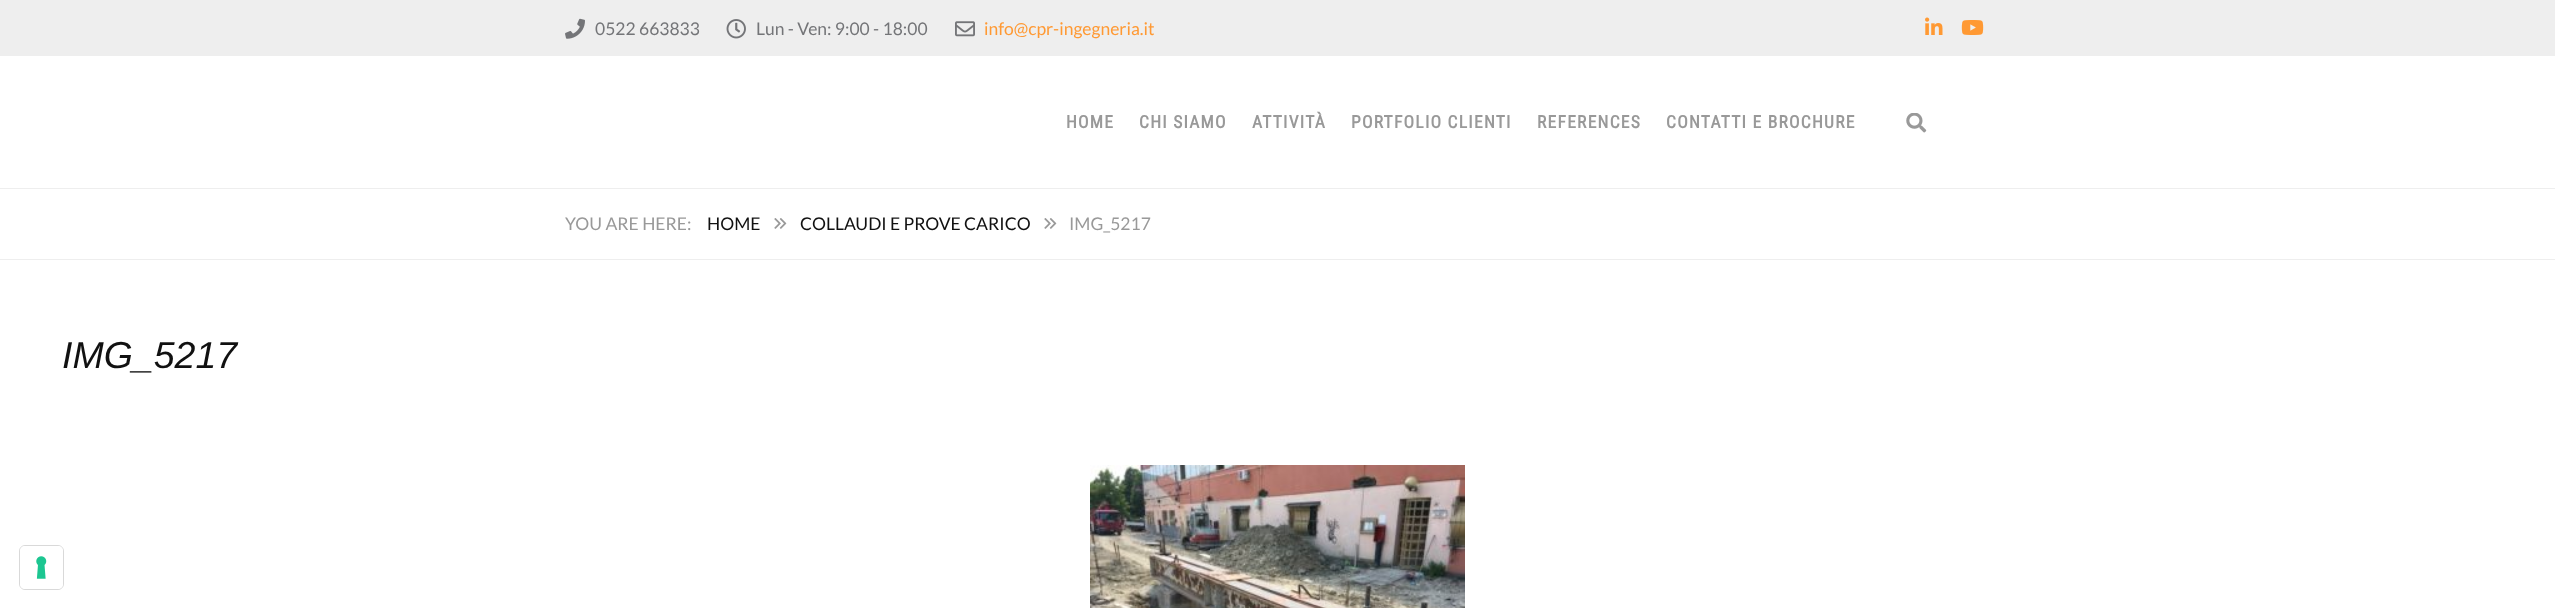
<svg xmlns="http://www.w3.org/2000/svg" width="2555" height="608">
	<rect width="100%" height="100%" fill="#EEEEEE" />
	<image x="565" y="18" width="20" height="21" href="assets/img1.png" />
	<text x="595" y="35" font-family="Lato" font-size="17.5" fill="#747578">0522 663833</text>
	<image x="726" y="19" width="20" height="20" href="assets/img2.png" />
	<text x="756" y="35" font-family="Lato" font-size="17.5" fill="#747578">Lun - Ven: 9:00 - 18:00</text>
	<image x="955" y="21" width="20" height="16" href="assets/img3.png" />
	<text x="984" y="35" font-family="Lato" font-size="17.5" fill="#FF9933">info@cpr-ingegneria.it</text>
	<image x="1925" y="17" width="18" height="18" href="assets/img4.png" />
	<image x="1961" y="20" width="23" height="15" href="assets/img5.png" />
	<rect x="0" y="56" width="2555" height="132" fill="#FFFFFF" />
	<g font-family="Roboto Condensed" font-size="17.5" font-weight="700" letter-spacing="1.25" fill="#999999">
		<text x="1066" y="128">HOME</text>
		<text x="1139" y="128">CHI SIAMO</text>
		<text x="1252" y="128">ATTIVITÀ</text>
		<text x="1351" y="128">PORTFOLIO CLIENTI</text>
		<text x="1537" y="128">REFERENCES</text>
		<text x="1666" y="128">CONTATTI E BROCHURE</text>
	</g>
	<image x="1906" y="113" width="21" height="20" href="assets/img6.png" />
	<rect x="0" y="189" width="2555" height="419" fill="#FFFFFF" />
	<rect x="0" y="259" width="2555" height="1" fill="#EEEEEE" />
	<text x="565" y="230" font-family="Lato" font-size="17.5" fill="#999999">YOU ARE HERE:</text>
	<text x="707" y="230" font-family="Lato" font-size="17.5" fill="#111111">HOME</text>
	<image x="774" y="218" width="13" height="11" href="assets/img7.png" />
	<text x="800" y="230" font-family="Lato" font-size="17.5" fill="#111111">COLLAUDI E PROVE CARICO</text>
	<image x="1044" y="218" width="13" height="11" href="assets/img7.png" />
	<text x="1069" y="230" font-family="Lato" font-size="17.5" fill="#999999">IMG_5217</text>
	<text x="62" y="368" font-family="Liberation Sans" font-size="37.5" font-style="italic" fill="#111111">IMG_5217</text>
	<image x="1090" y="465" width="375" height="143" href="assets/img8.png" />
	<rect x="19.5" y="545.5" width="44" height="44" rx="5.5" fill="none" stroke="#D9D9D9" />
	<rect x="20" y="546" width="43" height="43" rx="5" fill="#FFFFFF" />
	<image x="36" y="556" width="11" height="23" href="assets/img9.png" />
</svg>
